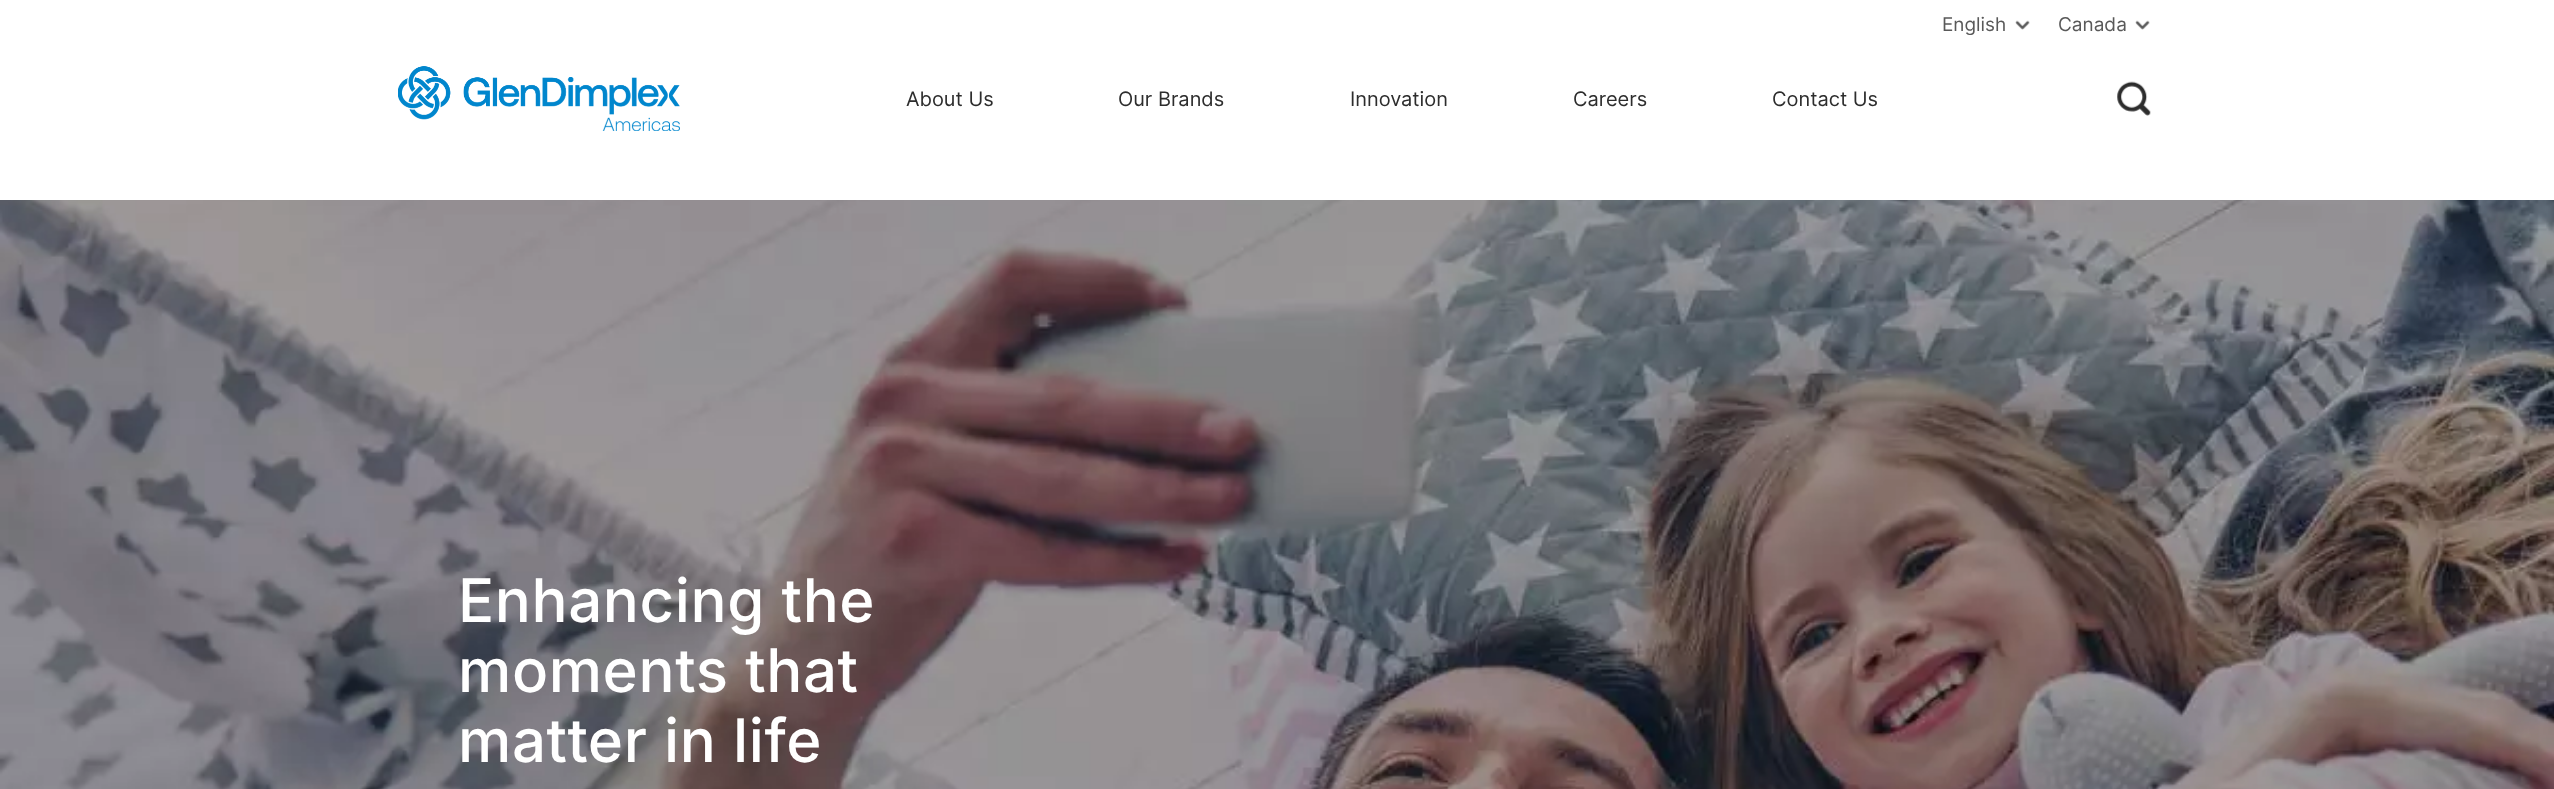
<svg xmlns="http://www.w3.org/2000/svg" width="2554" height="789">
	<rect width="100%" height="100%" fill="#FFFFFF" />
	<text x="1942" y="31" font-family="Inter" font-size="19" fill="#595959">English</text>
	<image x="2015" y="20" width="15" height="10" href="assets/img1.png" />
	<text x="2058" y="31" font-family="Inter" font-size="19" fill="#595959">Canada</text>
	<image x="2135" y="20" width="15" height="10" href="assets/img1.png" />
	<image x="398" y="66" width="282" height="65" href="assets/img2.png" />
	<g font-family="Inter" font-size="20" fill="#2D2D2D">
		<text x="906" y="106">About Us</text>
		<text x="1118" y="106">Our Brands</text>
		<text x="1350" y="106">Innovation</text>
		<text x="1573" y="106">Careers</text>
		<text x="1772" y="106">Contact Us</text>
	</g>
	<image x="2117" y="81" width="34" height="35" href="assets/img3.png" />
	<image x="0" y="200" width="2554" height="589" href="assets/img4.png" />
	<g font-family="Inter" font-size="60" font-weight="500" letter-spacing="0.6" fill="#FFFFFF">
		<text x="458" y="622">Enhancing the</text>
		<text x="458" y="692">moments that</text>
		<text x="458" y="762">matter in life</text>
	</g>
</svg>
